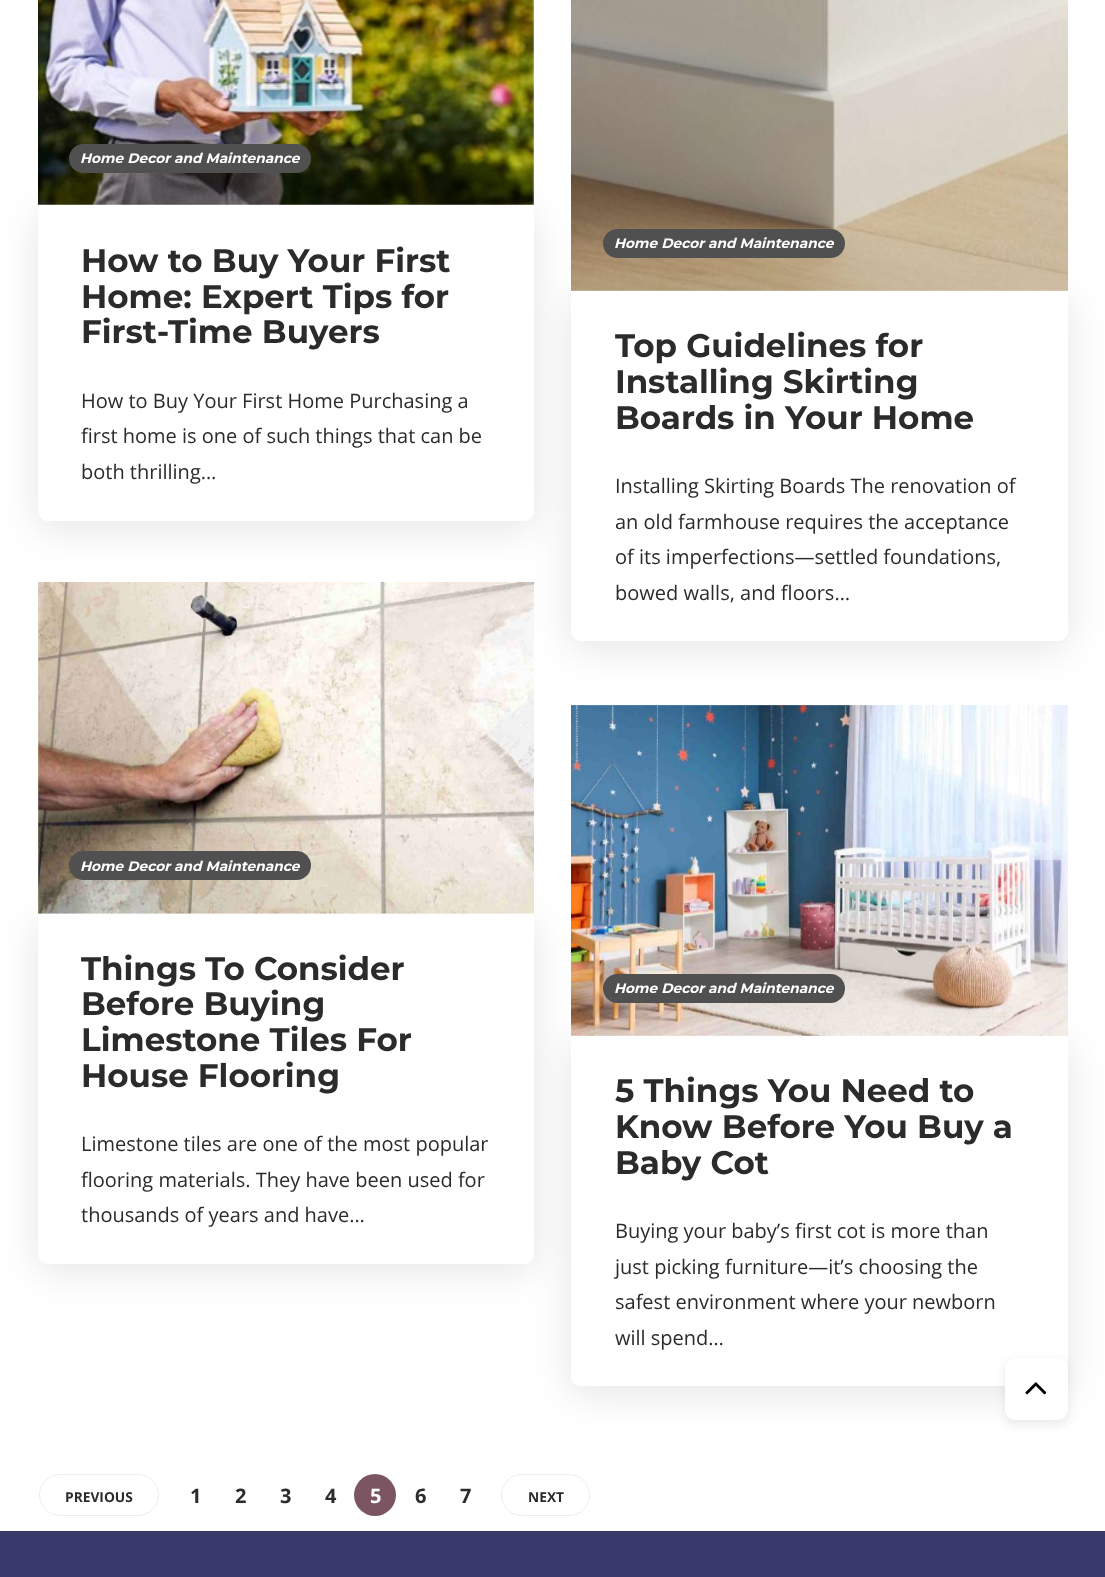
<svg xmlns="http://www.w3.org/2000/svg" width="1105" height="1577">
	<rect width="100%" height="100%" fill="#3A396B" />
	<rect x="0" y="0" width="1105" height="1531" fill="#FFFFFF" />
	<rect x="38" y="213" width="496" height="316" rx="10" fill="#000000" fill-opacity="0.1" filter="blur(19px)" />
	<image x="38" y="0" width="496" height="205" href="assets/img1.png" />
	<rect x="69" y="144" width="242" height="29" rx="14.5" fill="#515050" />
	<text x="80" y="163" font-family="Montserrat" font-size="13.75" font-weight="100" font-style="italic" fill="#FFFFFF">Home Decor and Maintenance</text>
	<path d="M38 205H534V511C534 516.5 529.5 521 524 521H48C42.5 521 38 516.5 38 511Z" fill="#FFFFFF" />
	<g font-family="Montserrat" font-size="32.5" font-weight="100" fill="#2B2B2B">
		<text x="81" y="272">How to Buy Your First</text>
		<text x="81" y="308">Home: Expert Tips for</text>
		<text x="81" y="343">First-Time Buyers</text>
	</g>
	<g font-family="Open Sans" font-size="20" fill="#2B2B2B">
		<text x="81" y="408">How to Buy Your First Home Purchasing a</text>
		<text x="81" y="443">first home is one of such things that can be</text>
		<text x="81" y="479">both thrilling…</text>
	</g>
	<rect x="571" y="299" width="497" height="350" rx="10" fill="#000000" fill-opacity="0.1" filter="blur(19px)" />
	<image x="571" y="0" width="497" height="291" href="assets/img2.png" />
	<rect x="603" y="229" width="242" height="29" rx="14.5" fill="#515050" />
	<text x="614" y="248" font-family="Montserrat" font-size="13.75" font-weight="100" font-style="italic" fill="#FFFFFF">Home Decor and Maintenance</text>
	<path d="M571 291H1068V631C1068 636.5 1063.5 641 1058 641H581C575.5 641 571 636.5 571 631Z" fill="#FFFFFF" />
	<g font-family="Montserrat" font-size="32.5" font-weight="100" fill="#2B2B2B">
		<text x="615" y="357">Top Guidelines for</text>
		<text x="615" y="393">Installing Skirting</text>
		<text x="615" y="429">Boards in Your Home</text>
	</g>
	<g font-family="Open Sans" font-size="20" fill="#2B2B2B">
		<text x="615" y="493">Installing‍‌‍‍‌‍‌‍‍‌ Skirting Boards The renovation of</text>
		<text x="615" y="529">an old farmhouse requires the acceptance</text>
		<text x="615" y="564">of its imperfections—settled foundations,</text>
		<text x="615" y="600">bowed walls, and floors…</text>
	</g>
	<rect x="38" y="921" width="496" height="350" rx="10" fill="#000000" fill-opacity="0.1" filter="blur(19px)" />
	<image x="38" y="582" width="496" height="332" href="assets/img3.png" />
	<rect x="69" y="851" width="242" height="29" rx="14.5" fill="#515050" />
	<text x="80" y="871" font-family="Montserrat" font-size="13.75" font-weight="100" font-style="italic" fill="#FFFFFF">Home Decor and Maintenance</text>
	<path d="M38 914H534V1254C534 1259.5 529.5 1264 524 1264H48C42.5 1264 38 1259.5 38 1254Z" fill="#FFFFFF" />
	<g font-family="Montserrat" font-size="32.5" font-weight="100" fill="#2B2B2B">
		<text x="81" y="980">Things To Consider</text>
		<text x="81" y="1015">Before Buying</text>
		<text x="81" y="1051">Limestone Tiles For</text>
		<text x="81" y="1087">House Flooring</text>
	</g>
	<g font-family="Open Sans" font-size="20" fill="#2B2B2B">
		<text x="81" y="1151">Limestone tiles are one of the most popular</text>
		<text x="81" y="1187">flooring materials. They have been used for</text>
		<text x="81" y="1222">thousands of years and have…</text>
	</g>
	<rect x="571" y="1044" width="497" height="350" rx="10" fill="#000000" fill-opacity="0.1" filter="blur(19px)" />
	<image x="571" y="705" width="497" height="331" href="assets/img4.png" />
	<rect x="603" y="974" width="242" height="29" rx="14.5" fill="#515050" />
	<text x="614" y="993" font-family="Montserrat" font-size="13.75" font-weight="100" font-style="italic" fill="#FFFFFF">Home Decor and Maintenance</text>
	<path d="M571 1036H1068V1376C1068 1381.5 1063.5 1386 1058 1386H581C575.5 1386 571 1381.5 571 1376Z" fill="#FFFFFF" />
	<g font-family="Montserrat" font-size="32.5" font-weight="100" fill="#2B2B2B">
		<text x="615" y="1102">5 Things You Need to</text>
		<text x="615" y="1138">Know Before You Buy a</text>
		<text x="615" y="1174">Baby Cot</text>
	</g>
	<g font-family="Open Sans" font-size="20" fill="#2B2B2B">
		<text x="615" y="1238">Buying your baby’s first cot is more than</text>
		<text x="615" y="1274">just picking furniture—it’s choosing the</text>
		<text x="615" y="1309">safest environment where your newborn</text>
		<text x="615" y="1345">will spend…</text>
	</g>
	<rect x="39.5" y="1474.5" width="119" height="41" rx="20.5" fill="none" stroke="#EDEDED" />
	<text x="65" y="1502" font-family="Open Sans" font-size="13.75" font-weight="700" fill="#2B2B2B">PREVIOUS</text>
	<g font-family="Open Sans" font-size="20" font-weight="700" fill="#2B2B2B">
		<text x="190" y="1503">1</text>
		<text x="235" y="1503">2</text>
		<text x="280" y="1503">3</text>
		<text x="325" y="1503">4</text>
	</g>
	<circle cx="375" cy="1495" r="21" fill="#7B5662" />
	<text x="370" y="1503" font-family="Open Sans" font-size="20" font-weight="700" fill="#FFFFFF">5</text>
	<g font-family="Open Sans" font-size="20" font-weight="700" fill="#2B2B2B">
		<text x="415" y="1503">6</text>
		<text x="460" y="1503">7</text>
	</g>
	<rect x="501.5" y="1474.5" width="88" height="41" rx="20.5" fill="none" stroke="#EDEDED" />
	<text x="528" y="1502" font-family="Open Sans" font-size="13.75" font-weight="700" fill="#2B2B2B">NEXT</text>
	<rect x="1004" y="1360" width="65" height="65" rx="11" fill="#000000" fill-opacity="0.07" filter="blur(4px)" />
	<rect x="1005" y="1358" width="63" height="62" rx="10" fill="#FFFFFF" />
	<image x="1025" y="1382" width="22" height="13" href="assets/img5.png" />
</svg>
